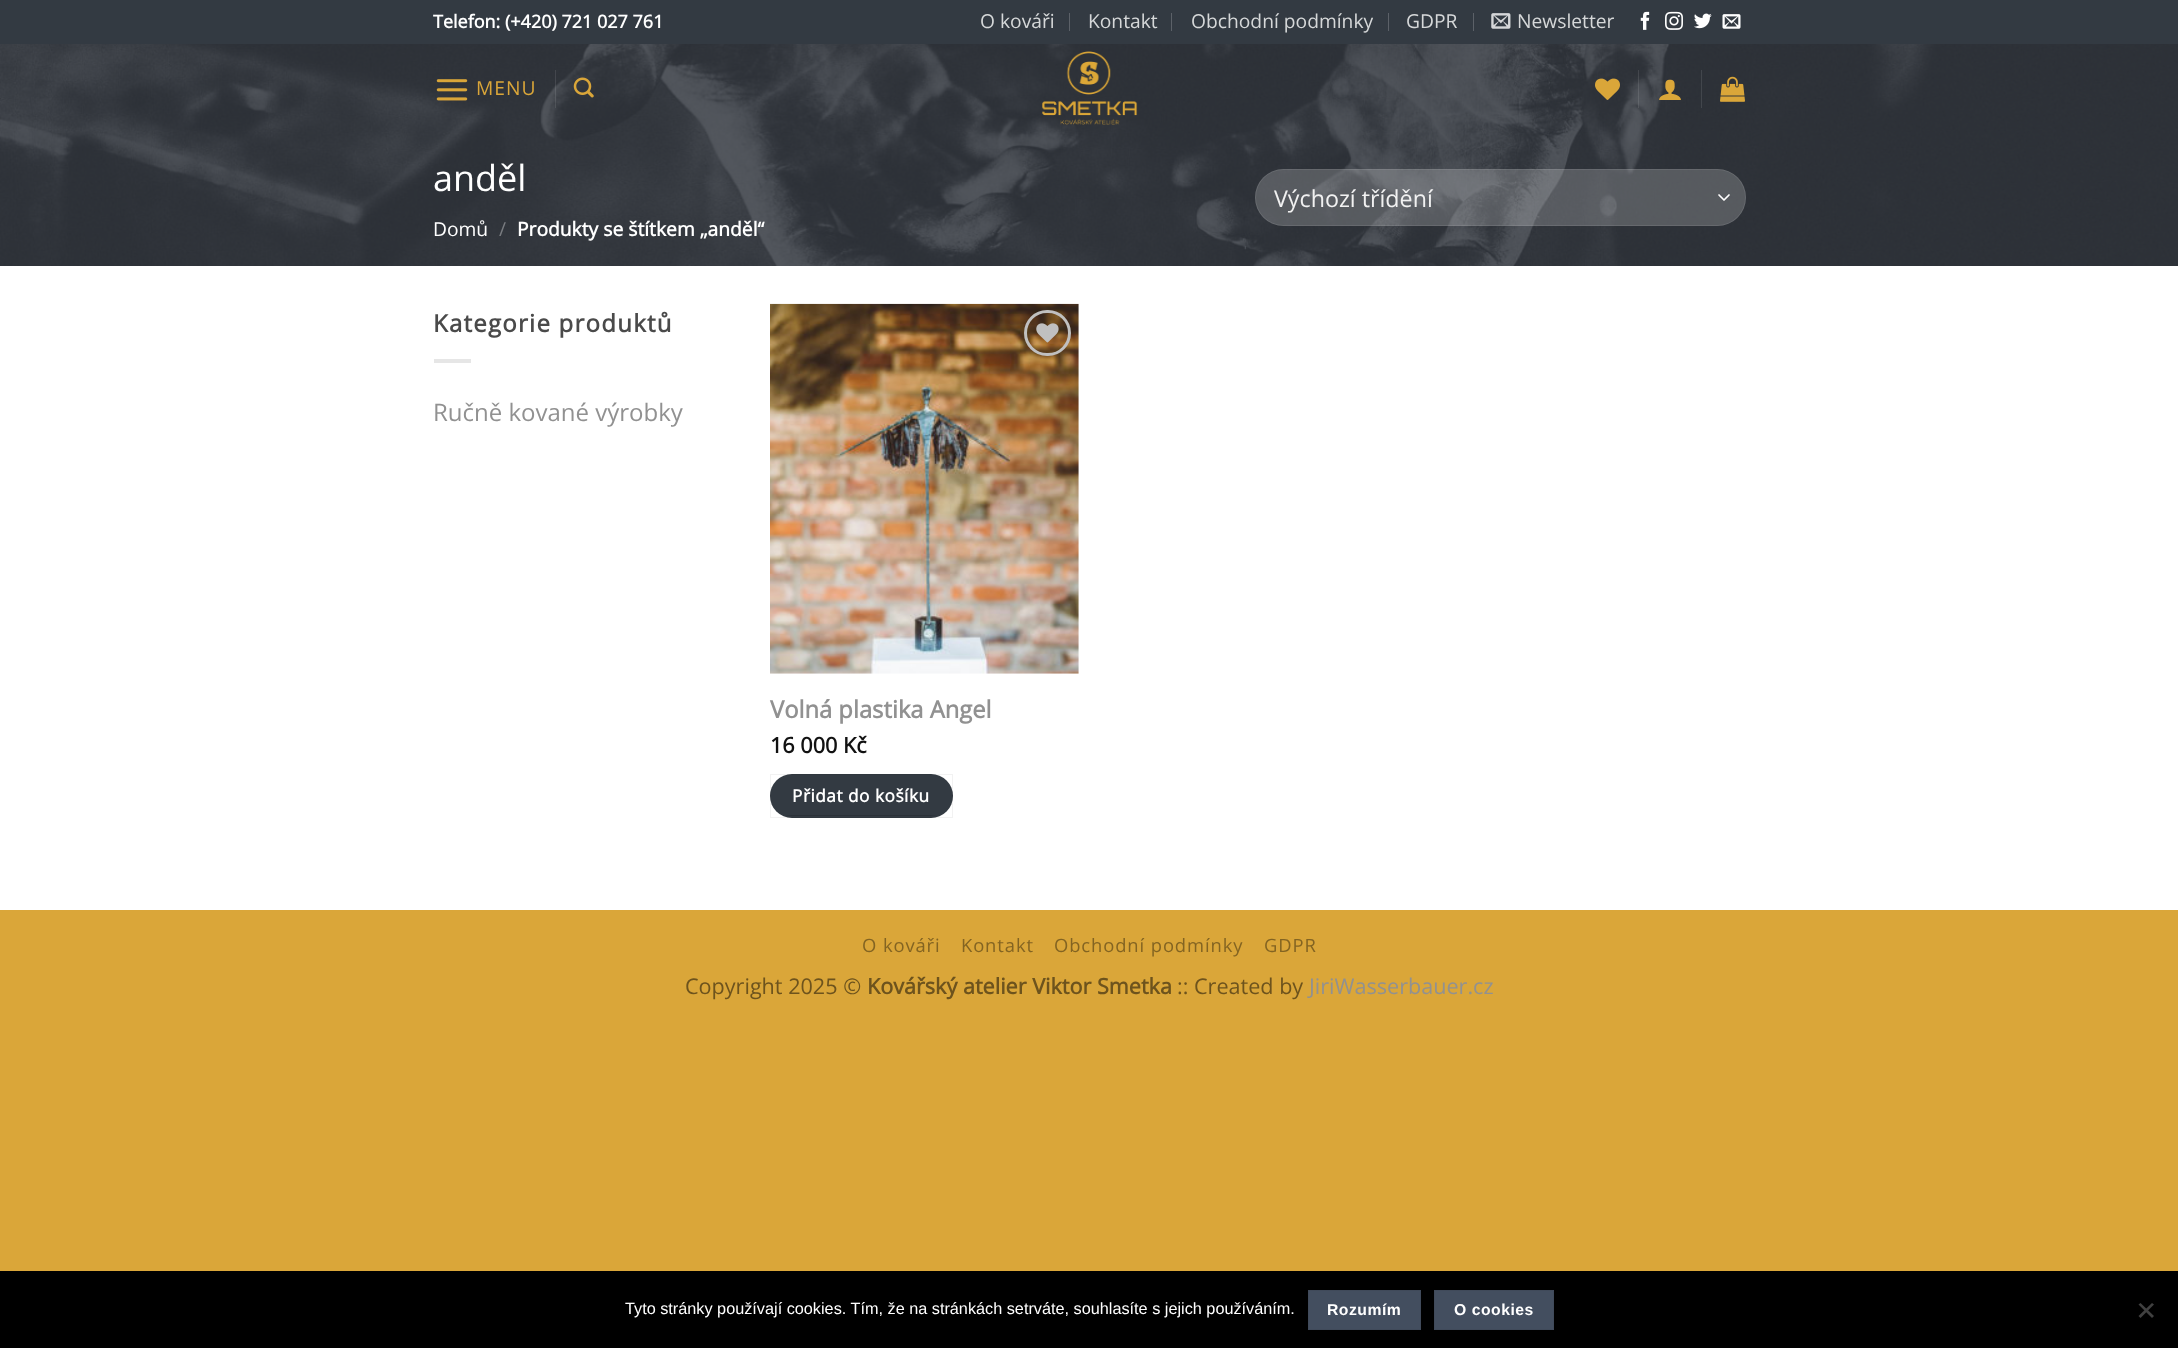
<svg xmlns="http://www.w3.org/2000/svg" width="2178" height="1348">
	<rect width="100%" height="100%" fill="#DAA639" />
	<rect x="0" y="0" width="2178" height="44" fill="#333A42" />
	<text x="433" y="28" font-family="Open Sans" font-size="18" font-weight="700" fill="#FFFFFF">Telefon: (+420) 721 027 761</text>
	<text x="980" y="28" font-family="Open Sans" font-size="19.25" fill="#D6D8D9">O kováři</text>
	<rect x="1069" y="13" width="1" height="18" fill="#5C6168" />
	<text x="1088" y="28" font-family="Open Sans" font-size="19.25" fill="#D6D8D9">Kontakt</text>
	<rect x="1171" y="13" width="1" height="18" fill="#5C6168" />
	<text x="1191" y="28" font-family="Open Sans" font-size="19.25" fill="#D6D8D9">Obchodní podmínky</text>
	<rect x="1388" y="13" width="1" height="18" fill="#5C6168" />
	<text x="1406" y="28" font-family="Open Sans" font-size="19.25" fill="#D6D8D9">GDPR</text>
	<rect x="1473" y="13" width="1" height="18" fill="#5C6168" />
	<image x="1491" y="13" width="20" height="16" href="assets/img1.png" />
	<text x="1517" y="28" font-family="Open Sans" font-size="19.25" fill="#D6D8D9">Newsletter</text>
	<image x="1640" y="11" width="10" height="19" href="assets/img2.png" />
	<image x="1665" y="11" width="18" height="19" href="assets/img3.png" />
	<image x="1694" y="13" width="18" height="16" href="assets/img4.png" />
	<image x="1722" y="14" width="19" height="15" href="assets/img5.png" />
	<image x="0" y="44" width="2178" height="222" href="assets/img12.png" />
	<image x="436" y="79" width="32" height="22" href="assets/img6.png" />
	<text x="476" y="95" font-family="Open Sans" font-size="19.25" letter-spacing="1" fill="#DAA639">MENU</text>
	<rect x="555" y="70" width="1" height="38" fill="#FFFFFF" fill-opacity="0.1" />
	<image x="573" y="77" width="21" height="21" href="assets/img7.png" />
	<image x="1042" y="51" width="96" height="74" href="assets/img8.png" />
	<image x="1595" y="78" width="25" height="22" href="assets/img9.png" />
	<rect x="1638" y="70" width="1" height="38" fill="#FFFFFF" fill-opacity="0.1" />
	<image x="1659" y="79" width="22" height="21" href="assets/img10.png" />
	<rect x="1701" y="70" width="1" height="38" fill="#42464C" />
	<image x="1720" y="76" width="25" height="26" href="assets/img11.png" />
	<text x="433" y="191" font-family="Open Sans" font-size="36" fill="#FFFFFF">anděl</text>
	<text x="433" y="236" font-family="Open Sans" font-size="19.25" fill="#FFFFFF">Domů</text>
	<text x="499" y="236" font-family="Open Sans" font-size="19.25" fill="#797C80">/</text>
	<text x="517" y="236" font-family="Open Sans" font-size="19.25" font-weight="700" fill="#FFFFFF">Produkty se štítkem „anděl“</text>
	<rect x="1255" y="169" width="491" height="57" rx="28.5" fill="#FFFFFF" fill-opacity="0.2" />
	<path d="M1719 195L1724 200L1729 195" fill="none" stroke="#FFFFFF" stroke-width="1.7" stroke-linecap="round" stroke-linejoin="round" />
	<rect x="1255.5" y="169.5" width="490" height="56" rx="28" fill="none" stroke="#FFFFFF" stroke-opacity="0.09" />
	<text x="1274" y="207" font-family="Open Sans" font-size="23.25" fill="#F1F1F1">Výchozí třídění</text>
	<rect x="0" y="266" width="2178" height="644" fill="#FFFFFF" />
	<text x="433" y="332" font-family="Open Sans" font-size="24" font-weight="700" letter-spacing="1.25" fill="#4A4A4A">Kategorie produktů</text>
	<rect x="434" y="359" width="37" height="4" fill="#E6E6E6" />
	<text x="433" y="421" font-family="Open Sans" font-size="24" fill="#919191">Ručně kované výrobky</text>
	<image x="770" y="303" width="309" height="371" href="assets/img13.png" />
	<rect x="1025.5" y="311.5" width="44" height="43" rx="21.5" fill="none" stroke="#C0C0C0" stroke-width="3" />
	<image x="1036" y="323" width="23" height="20" href="assets/img14.png" />
	<text x="770" y="718" font-family="Open Sans" font-size="23.75" font-weight="700" fill="#919191">Volná plastika Angel</text>
	<text x="770" y="753" font-family="Open Sans" font-size="21.6" font-weight="700" fill="#111111">16 000 Kč</text>
	<rect x="770" y="774" width="183" height="44" rx="22" fill="#333A42" />
	<rect x="770.5" y="774.5" width="182" height="43" fill="none" stroke="#000000" stroke-opacity="0.05" />
	<text x="792" y="802" font-family="Open Sans" font-size="17.25" font-weight="700" letter-spacing="0.5" fill="#FFFFFF">Přidat do košíku</text>
	<path d="M937 815H785L792 816H930Z" fill="#2B3138" />
	<g font-family="Open Sans" font-size="18.4" letter-spacing="0.9" fill="#836422">
		<text x="862" y="952">O kováři</text>
		<text x="961" y="952">Kontakt</text>
		<text x="1054" y="952">Obchodní podmínky</text>
		<text x="1264" y="952">GDPR</text>
	</g>
	<text x="685" y="994" font-family="Open Sans" font-size="21.6" fill="#6D531D">Copyright 2025 ©</text>
	<text x="867" y="994" font-family="Open Sans" font-size="21.6" font-weight="700" fill="#6D531D">Kovářský atelier Viktor Smetka</text>
	<text x="1177" y="994" font-family="Open Sans" font-size="21.6" fill="#6D531D">:: Created by</text>
	<text x="1309" y="994" font-family="Open Sans" font-size="21.6" fill="#919191">JiriWasserbauer.cz</text>
	<rect x="0" y="1271" width="2178" height="77" fill="#000000" />
	<text x="625" y="1314" font-family="Liberation Sans" font-size="16.25" fill="#FFFFFF">Tyto stránky používají cookies. Tím, že na stránkách setrváte, souhlasíte s jejich používáním.</text>
	<rect x="1308.5" y="1290.5" width="112" height="39" fill="#434E5F" stroke="#404A5A" />
	<text x="1327" y="1315" font-family="Liberation Sans" font-size="15.75" font-weight="700" letter-spacing="0.5" fill="#FFFFFF">Rozumím</text>
	<rect x="1434.5" y="1290.5" width="119" height="39" fill="#434E5F" stroke="#404A5A" />
	<text x="1454" y="1315" font-family="Liberation Sans" font-size="15.75" font-weight="700" letter-spacing="0.5" fill="#FFFFFF">O cookies</text>
	<path d="M2152 1303L2154 1304.5L2140.5 1318L2138.5 1316Z" fill="#404040" />
	<path d="M2138.5 1304.5L2140.5 1303L2154 1316L2152 1318Z" fill="#404040" />
</svg>
